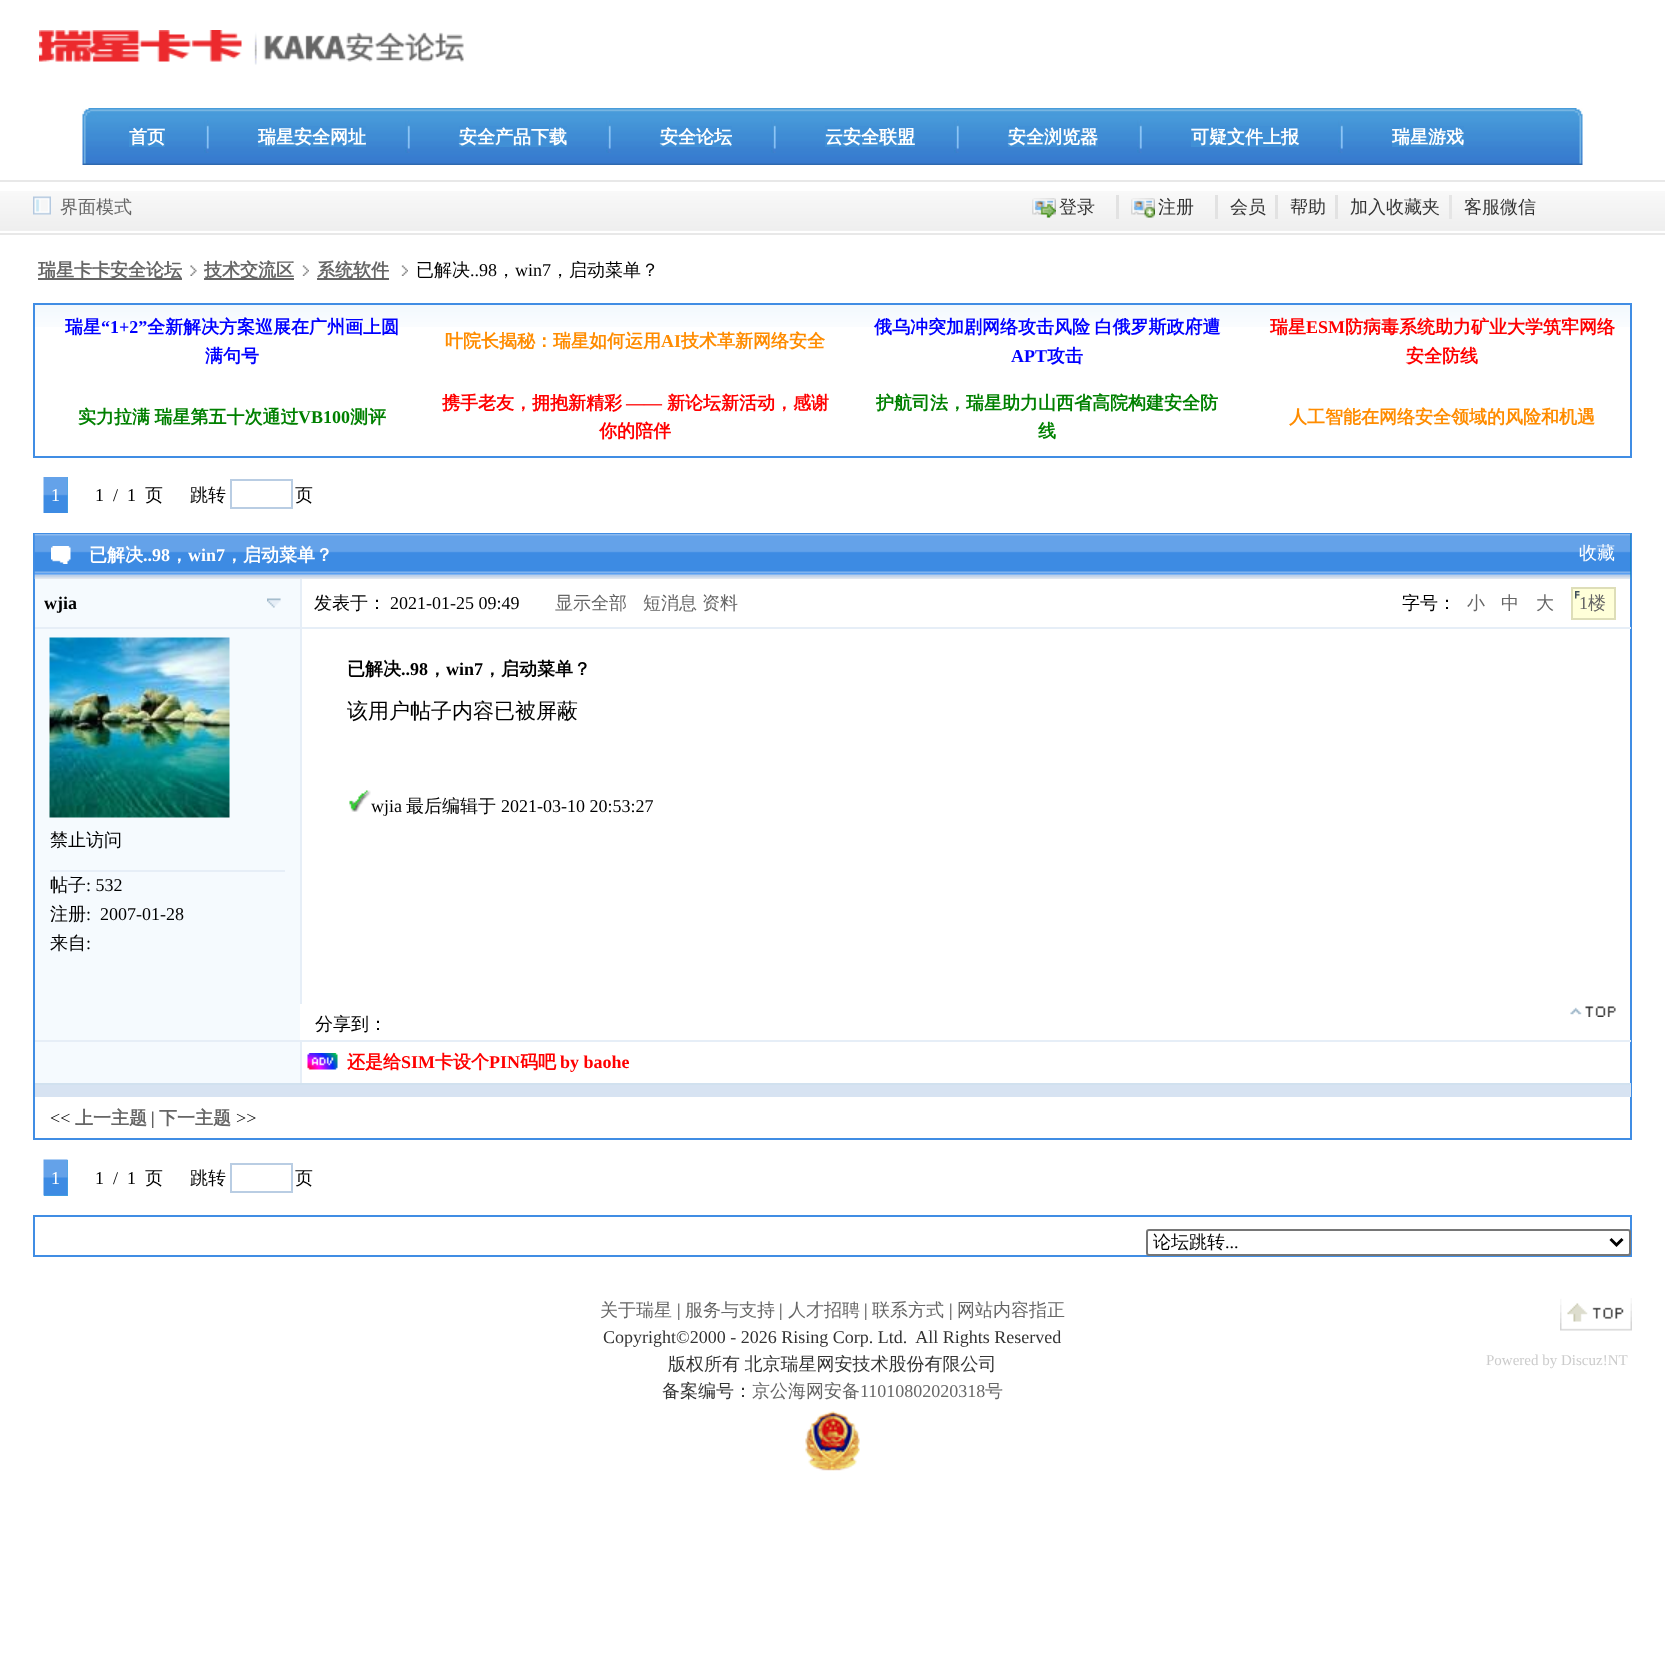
<svg xmlns="http://www.w3.org/2000/svg" width="1665" height="1655">
	<rect width="100%" height="100%" fill="#FFFFFF" />
	<image x="39" y="30" width="425" height="35" href="assets/img1.png" />
	<image x="82" y="108" width="1501" height="57" href="assets/img2.png" />
	<rect x="129" y="126" width="36" height="21" fill="#4190D6" />
	<text x="129" y="143" font-family="WenQuanYi Zen Hei" font-size="18" font-weight="700" fill="#FFFFFF">首页</text>
	<image x="204" y="120" width="5" height="33" href="assets/img3.png" />
	<rect x="258" y="126" width="108" height="21" fill="#4190D6" />
	<text x="258" y="143" font-family="WenQuanYi Zen Hei" font-size="18" font-weight="700" fill="#FFFFFF">瑞星安全网址</text>
	<image x="405" y="120" width="5" height="33" href="assets/img4.png" />
	<rect x="459" y="126" width="108" height="21" fill="#4190D6" />
	<text x="459" y="143" font-family="WenQuanYi Zen Hei" font-size="18" font-weight="700" fill="#FFFFFF">安全产品下载</text>
	<image x="606" y="120" width="5" height="33" href="assets/img3.png" />
	<rect x="660" y="126" width="72" height="21" fill="#4190D6" />
	<text x="660" y="143" font-family="WenQuanYi Zen Hei" font-size="18" font-weight="700" fill="#FFFFFF">安全论坛</text>
	<image x="771" y="120" width="5" height="33" href="assets/img3.png" />
	<rect x="825" y="126" width="90" height="21" fill="#4190D6" />
	<text x="825" y="143" font-family="WenQuanYi Zen Hei" font-size="18" font-weight="700" fill="#FFFFFF">云安全联盟</text>
	<image x="954" y="120" width="5" height="33" href="assets/img3.png" />
	<rect x="1008" y="126" width="90" height="21" fill="#4190D6" />
	<text x="1008" y="143" font-family="WenQuanYi Zen Hei" font-size="18" font-weight="700" fill="#FFFFFF">安全浏览器</text>
	<image x="1137" y="120" width="5" height="33" href="assets/img4.png" />
	<rect x="1191" y="126" width="108" height="21" fill="#4190D6" />
	<text x="1191" y="143" font-family="WenQuanYi Zen Hei" font-size="18" font-weight="700" fill="#FFFFFF">可疑文件上报</text>
	<image x="1338" y="120" width="5" height="33" href="assets/img4.png" />
	<rect x="1392" y="126" width="72" height="21" fill="#4190D6" />
	<text x="1392" y="143" font-family="WenQuanYi Zen Hei" font-size="18" font-weight="700" fill="#FFFFFF">瑞星游戏</text>
	<image x="0" y="191" width="1665" height="40" href="assets/img5.png" />
	<rect x="0" y="180" width="1665" height="2" fill="#E8E8E8" />
	<rect x="0" y="233" width="1665" height="2" fill="#E8E8E8" />
	<image x="33" y="196" width="18" height="19" href="assets/img6.png" />
	<text x="60" y="213" font-family="WenQuanYi Zen Hei" font-size="18" font-weight="500" fill="#666666">界面模式</text>
	<rect x="1116" y="195" width="3" height="24" fill="#E2E2E2" />
	<image x="1032" y="198" width="24" height="20" href="assets/img7.png" />
	<text x="1059" y="213" font-family="WenQuanYi Zen Hei" font-size="18" font-weight="500" fill="#333333">登录</text>
	<rect x="1215" y="195" width="3" height="24" fill="#E2E2E2" />
	<image x="1131" y="198" width="24" height="20" href="assets/img8.png" />
	<text x="1158" y="213" font-family="WenQuanYi Zen Hei" font-size="18" font-weight="500" fill="#333333">注册</text>
	<rect x="1275" y="195" width="3" height="24" fill="#E2E2E2" />
	<text x="1230" y="213" font-family="WenQuanYi Zen Hei" font-size="18" font-weight="500" fill="#333333">会员</text>
	<rect x="1335" y="195" width="3" height="24" fill="#E2E2E2" />
	<text x="1290" y="213" font-family="WenQuanYi Zen Hei" font-size="18" font-weight="500" fill="#333333">帮助</text>
	<rect x="1449" y="195" width="3" height="24" fill="#E5E5E5" />
	<g font-family="WenQuanYi Zen Hei" font-size="18" font-weight="500" fill="#333333">
		<text x="1350" y="213">加入收藏夹</text>
		<text x="1464" y="213">客服微信</text>
	</g>
	<rect x="38" y="278" width="144" height="2" fill="#666666" />
	<text x="38" y="276" font-family="WenQuanYi Zen Hei" font-size="18" font-weight="700" fill="#666666">瑞星卡卡安全论坛</text>
	<image x="190" y="265" width="7" height="11" href="assets/img9.png" />
	<rect x="204" y="278" width="90" height="2" fill="#666666" />
	<text x="204" y="276" font-family="WenQuanYi Zen Hei" font-size="18" font-weight="700" fill="#666666">技术交流区</text>
	<image x="302" y="265" width="7" height="11" href="assets/img10.png" />
	<rect x="317" y="278" width="72" height="2" fill="#666666" />
	<text x="317" y="276" font-family="WenQuanYi Zen Hei" font-size="18" font-weight="700" fill="#666666">系统软件</text>
	<image x="401" y="265" width="7" height="11" href="assets/img11.png" />
	<text x="416" y="276" font-family="WenQuanYi Zen Hei" font-size="18" font-weight="500" fill="#000000">已解决</text>
	<text x="470" y="276" font-family="Liberation Serif" font-size="18" fill="#000000">..98</text>
	<text x="497" y="276" font-family="WenQuanYi Zen Hei" font-size="18" font-weight="500" fill="#000000">，</text>
	<text x="515" y="276" font-family="Liberation Serif" font-size="18" fill="#000000">win7</text>
	<text x="551" y="276" font-family="WenQuanYi Zen Hei" font-size="18" font-weight="500" fill="#000000">，启动菜单？</text>
	<image x="35" y="305" width="1595" height="22" href="assets/img12.png" />
	<rect x="34" y="304" width="1597" height="153" fill="none" stroke="#408DE4" stroke-width="2" />
	<text x="65" y="333" font-family="WenQuanYi Zen Hei" font-size="18" font-weight="700" fill="#0000FF">瑞星</text>
	<text x="101" y="333" font-family="Liberation Serif" font-size="18" font-weight="700" fill="#0000FF">“1+2”</text>
	<g font-family="WenQuanYi Zen Hei" font-size="18" font-weight="700" fill="#0000FF">
		<text x="147" y="333">全新解决方案巡展在广州画上圆</text>
		<text x="205" y="362">满句号</text>
	</g>
	<text x="445" y="347" font-family="WenQuanYi Zen Hei" font-size="18" font-weight="700" fill="#FF8C00">叶院长揭秘：瑞星如何运用</text>
	<text x="661" y="347" font-family="Liberation Serif" font-size="18" font-weight="700" fill="#FF8C00">AI</text>
	<text x="681" y="347" font-family="WenQuanYi Zen Hei" font-size="18" font-weight="700" fill="#FF8C00">技术革新网络安全</text>
	<text x="874" y="333" word-spacing="-1" font-family="WenQuanYi Zen Hei" font-size="18" font-weight="700" fill="#0000FF">俄乌冲突加剧网络攻击风险 白俄罗斯政府遭</text>
	<text x="1011" y="362" font-family="Liberation Serif" font-size="18" font-weight="700" fill="#0000FF">APT</text>
	<text x="1047" y="362" font-family="WenQuanYi Zen Hei" font-size="18" font-weight="700" fill="#0000FF">攻击</text>
	<text x="1270" y="333" font-family="WenQuanYi Zen Hei" font-size="18" font-weight="700" fill="#FF0000">瑞星</text>
	<text x="1306" y="333" font-family="Liberation Serif" font-size="18" font-weight="700" fill="#FF0000">ESM</text>
	<g font-family="WenQuanYi Zen Hei" font-size="18" font-weight="700" fill="#FF0000">
		<text x="1345" y="333">防病毒系统助力矿业大学筑牢网络</text>
		<text x="1406" y="362">安全防线</text>
	</g>
	<text x="78" y="423" word-spacing="-1" font-family="WenQuanYi Zen Hei" font-size="18" font-weight="700" fill="#008000">实力拉满 瑞星第五十次通过</text>
	<text x="298" y="423" font-family="Liberation Serif" font-size="18" font-weight="700" fill="#008000">VB100</text>
	<text x="350" y="423" font-family="WenQuanYi Zen Hei" font-size="18" font-weight="700" fill="#008000">测评</text>
	<text x="442" y="409" font-family="WenQuanYi Zen Hei" font-size="18" font-weight="700" fill="#FF0000">携手老友，拥抱新精彩</text>
	<text x="626" y="409" font-family="Liberation Serif" font-size="18" font-weight="700" fill="#FF0000">——</text>
	<g font-family="WenQuanYi Zen Hei" font-size="18" font-weight="700" fill="#FF0000">
		<text x="667" y="409">新论坛新活动，感谢</text>
		<text x="599" y="437">你的陪伴</text>
	</g>
	<g font-family="WenQuanYi Zen Hei" font-size="18" font-weight="700" fill="#008000">
		<text x="876" y="409">护航司法，瑞星助力山西省高院构建安全防</text>
		<text x="1038" y="437">线</text>
	</g>
	<text x="1289" y="423" font-family="WenQuanYi Zen Hei" font-size="18" font-weight="700" fill="#FF8C00">人工智能在网络安全领域的风险和机遇</text>
	<rect x="67" y="477" width="1" height="36" fill="#45ACE1" />
	<image x="43" y="477" width="25" height="36" href="assets/img13.png" />
	<text x="51" y="501" font-family="Liberation Serif" font-size="18" fill="#FFFFFF">1</text>
	<g font-family="Liberation Serif" font-size="18" fill="#000000">
		<text x="95" y="501">1</text>
		<text x="113" y="501" xml:space="preserve">/  1</text>
	</g>
	<g font-family="WenQuanYi Zen Hei" font-size="18" font-weight="500" fill="#000000">
		<text x="145" y="501">页</text>
		<text x="190" y="501">跳转</text>
	</g>
	<rect x="231" y="480" width="61" height="28" fill="none" stroke="#B9CDE3" stroke-width="2" />
	<text x="295" y="501" font-family="WenQuanYi Zen Hei" font-size="18" font-weight="500" fill="#000000">页</text>
	<rect x="34" y="534" width="1597" height="605" fill="none" stroke="#408DE4" stroke-width="2" />
	<rect x="1630" y="534" width="1" height="45" fill="#1080C0" />
	<image x="34" y="534" width="1597" height="45" href="assets/img14.png" />
	<image x="51" y="546" width="20" height="18" href="assets/img15.png" />
	<text x="89" y="561" font-family="WenQuanYi Zen Hei" font-size="18" font-weight="700" fill="#FFFFFF">已解决</text>
	<text x="143" y="561" font-family="Liberation Serif" font-size="18" font-weight="700" fill="#FFFFFF">..98</text>
	<text x="170" y="561" font-family="WenQuanYi Zen Hei" font-size="18" font-weight="700" fill="#FFFFFF">，</text>
	<text x="188" y="561" font-family="Liberation Serif" font-size="18" font-weight="700" fill="#FFFFFF">win7</text>
	<text x="225" y="561" font-family="WenQuanYi Zen Hei" font-size="18" font-weight="700" fill="#FFFFFF">，启动菜单？</text>
	<text x="1579" y="559" font-family="WenQuanYi Zen Hei" font-size="18" font-weight="500" fill="#FFFFFF">收藏</text>
	<rect x="35" y="579" width="265" height="461" fill="#F5FAFE" />
	<image x="267" y="598" width="14" height="10" href="assets/img16.png" />
	<text x="44" y="609" font-family="Liberation Serif" font-size="18" font-weight="700" fill="#000000">wjia</text>
	<rect x="35" y="627" width="265" height="2" fill="#E6EEF7" />
	<image x="49" y="637" width="181" height="181" href="assets/img17.png" />
	<text x="50" y="846" font-family="WenQuanYi Zen Hei" font-size="18" font-weight="500" fill="#000000">禁止访问</text>
	<rect x="50" y="870" width="235" height="2" fill="#E6EEF7" />
	<text x="50" y="891" font-family="WenQuanYi Zen Hei" font-size="18" font-weight="500" fill="#000000">帖子</text>
	<text x="86" y="891" font-family="Liberation Serif" font-size="18" fill="#000000">: 532</text>
	<text x="50" y="920" font-family="WenQuanYi Zen Hei" font-size="18" font-weight="500" fill="#000000">注册</text>
	<g font-family="Liberation Serif" font-size="18" fill="#000000">
		<text x="86" y="920">:</text>
		<text x="100" y="920">2007-01-28</text>
	</g>
	<text x="50" y="949" font-family="WenQuanYi Zen Hei" font-size="18" font-weight="500" fill="#000000">来自</text>
	<text x="86" y="949" font-family="Liberation Serif" font-size="18" fill="#000000">:</text>
	<rect x="300" y="579" width="2" height="425" fill="#E6EEF7" />
	<rect x="302" y="627" width="1329" height="2" fill="#E6EEF7" />
	<text x="314" y="609" font-family="WenQuanYi Zen Hei" font-size="18" font-weight="500" fill="#000000">发表于：</text>
	<text x="390" y="609" font-family="Liberation Serif" font-size="18" fill="#000000">2021-01-25 09:49</text>
	<g font-family="WenQuanYi Zen Hei" font-size="18" font-weight="500" fill="#666666">
		<text x="555" y="609">显示全部</text>
		<text x="643" y="609">短消息</text>
		<text x="702" y="609">资料</text>
	</g>
	<text x="1402" y="609" font-family="WenQuanYi Zen Hei" font-size="18" font-weight="500" fill="#000000">字号：</text>
	<g font-family="WenQuanYi Zen Hei" font-size="18" font-weight="500" fill="#666666">
		<text x="1467" y="609">小</text>
		<text x="1501" y="609">中</text>
		<text x="1536" y="609">大</text>
	</g>
	<rect x="1573" y="589" width="41" height="29" fill="#FFFFD9" />
	<image x="1575" y="591" width="5" height="8" href="assets/img18.png" />
	<rect x="1572" y="588" width="43" height="31" fill="none" stroke="#DEDEB8" stroke-width="2" />
	<text x="1579" y="609" font-family="Liberation Serif" font-size="18" fill="#666666">1</text>
	<text x="1588" y="609" font-family="WenQuanYi Zen Hei" font-size="18" font-weight="500" fill="#666666">楼</text>
	<text x="347" y="675" font-family="WenQuanYi Zen Hei" font-size="18" font-weight="700" fill="#000000">已解决</text>
	<text x="401" y="675" font-family="Liberation Serif" font-size="18" font-weight="700" fill="#000000">..98</text>
	<text x="428" y="675" font-family="WenQuanYi Zen Hei" font-size="18" font-weight="700" fill="#000000">，</text>
	<text x="446" y="675" font-family="Liberation Serif" font-size="18" font-weight="700" fill="#000000">win7</text>
	<text x="483" y="675" font-family="WenQuanYi Zen Hei" font-size="18" font-weight="700" fill="#000000">，启动菜单？</text>
	<text x="347" y="718" font-family="WenQuanYi Zen Hei" font-size="21" font-weight="500" fill="#000000">该用户帖子内容已被屏蔽</text>
	<image x="349" y="790" width="22" height="22" href="assets/img19.png" />
	<text x="371" y="812" font-family="Liberation Serif" font-size="18" fill="#000000">wjia</text>
	<text x="406" y="812" font-family="WenQuanYi Zen Hei" font-size="18" font-weight="500" fill="#000000">最后编辑于</text>
	<text x="501" y="812" font-family="Liberation Serif" font-size="18" fill="#000000">2021-03-10 20:53:27</text>
	<image x="1570" y="1006" width="46" height="11" href="assets/img20.png" />
	<text x="315" y="1030" font-family="WenQuanYi Zen Hei" font-size="18" font-weight="500" fill="#000000">分享到：</text>
	<rect x="35" y="1042" width="265" height="41" fill="#F5FAFE" />
	<rect x="35" y="1040" width="1596" height="2" fill="#E6EEF7" />
	<rect x="300" y="1040" width="2" height="43" fill="#E6EEF7" />
	<image x="307" y="1053" width="31" height="17" href="assets/img21.png" />
	<text x="347" y="1068" font-family="WenQuanYi Zen Hei" font-size="18" font-weight="700" fill="#FF0000">还是给</text>
	<text x="401" y="1068" font-family="Liberation Serif" font-size="18" font-weight="700" fill="#FF0000">SIM</text>
	<text x="435" y="1068" font-family="WenQuanYi Zen Hei" font-size="18" font-weight="700" fill="#FF0000">卡设个</text>
	<text x="489" y="1068" font-family="Liberation Serif" font-size="18" font-weight="700" fill="#FF0000">PIN</text>
	<text x="520" y="1068" font-family="WenQuanYi Zen Hei" font-size="18" font-weight="700" fill="#FF0000">码吧</text>
	<text x="560" y="1068" font-family="Liberation Serif" font-size="18" font-weight="700" fill="#FF0000">by baohe</text>
	<rect x="35" y="1085" width="1596" height="12" fill="#D7E3F2" />
	<rect x="35" y="1083" width="1596" height="2" fill="#D1E1EF" />
	<text x="50" y="1124" font-family="Liberation Serif" font-size="18" fill="#000000">&lt;&lt;</text>
	<text x="75" y="1124" font-family="WenQuanYi Zen Hei" font-size="18" font-weight="700" fill="#666666">上一主题</text>
	<text x="151" y="1124" font-family="Liberation Serif" font-size="18" fill="#000000">|</text>
	<text x="159" y="1124" font-family="WenQuanYi Zen Hei" font-size="18" font-weight="700" fill="#666666">下一主题</text>
	<text x="236" y="1124" font-family="Liberation Serif" font-size="18" fill="#000000">&gt;&gt;</text>
	<rect x="44" y="1160" width="24" height="36" fill="#45ACE1" />
	<image x="43" y="1159" width="25" height="37" href="assets/img22.png" />
	<text x="51" y="1184" font-family="Liberation Serif" font-size="18" fill="#FFFFFF">1</text>
	<g font-family="Liberation Serif" font-size="18" fill="#000000">
		<text x="95" y="1184">1</text>
		<text x="113" y="1184" xml:space="preserve">/  1</text>
	</g>
	<g font-family="WenQuanYi Zen Hei" font-size="18" font-weight="500" fill="#000000">
		<text x="145" y="1184">页</text>
		<text x="190" y="1184">跳转</text>
	</g>
	<rect x="231" y="1164" width="61" height="28" fill="none" stroke="#B9CDE3" stroke-width="2" />
	<text x="295" y="1184" font-family="WenQuanYi Zen Hei" font-size="18" font-weight="500" fill="#000000">页</text>
	<rect x="34" y="1216" width="1597" height="40" fill="none" stroke="#408DE4" stroke-width="2" />
	<rect x="1147" y="1230" width="483" height="25" rx="2" fill="#FFFFFF" stroke="#767676" stroke-width="2" />
	<path d="M1610.5 1239L1616.5 1245L1622.5 1239" fill="none" stroke="#000000" stroke-width="3" />
	<text x="1153" y="1248" font-family="WenQuanYi Zen Hei" font-size="18" font-weight="500" fill="#000000">论坛跳转</text>
	<text x="1225" y="1248" font-family="Liberation Serif" font-size="18" fill="#000000">...</text>
	<text x="600" y="1316" font-family="WenQuanYi Zen Hei" font-size="18" font-weight="500" fill="#666666">关于瑞星</text>
	<text x="677" y="1316" font-family="Liberation Serif" font-size="18" fill="#333333">|</text>
	<text x="685" y="1316" font-family="WenQuanYi Zen Hei" font-size="18" font-weight="500" fill="#666666">服务与支持</text>
	<text x="779" y="1316" font-family="Liberation Serif" font-size="18" fill="#333333">|</text>
	<text x="788" y="1316" font-family="WenQuanYi Zen Hei" font-size="18" font-weight="500" fill="#666666">人才招聘</text>
	<text x="864" y="1316" font-family="Liberation Serif" font-size="18" fill="#333333">|</text>
	<text x="872" y="1316" font-family="WenQuanYi Zen Hei" font-size="18" font-weight="500" fill="#666666">联系方式</text>
	<text x="949" y="1316" font-family="Liberation Serif" font-size="18" fill="#333333">|</text>
	<text x="957" y="1316" font-family="WenQuanYi Zen Hei" font-size="18" font-weight="500" fill="#666666">网站内容指正</text>
	<text x="603" y="1343" font-family="Liberation Serif" font-size="18" fill="#333333" xml:space="preserve">Copyright©2000 - 2026 Rising Corp. Ltd.  All Rights Reserved</text>
	<g font-family="WenQuanYi Zen Hei" font-size="18" font-weight="500" fill="#333333">
		<text x="668" y="1370" word-spacing="-1">版权所有 北京瑞星网安技术股份有限公司</text>
		<text x="662" y="1397">备案编号：</text>
	</g>
	<text x="752" y="1397" font-family="WenQuanYi Zen Hei" font-size="18" font-weight="500" fill="#666666">京公海网安备</text>
	<text x="860" y="1397" font-family="Liberation Serif" font-size="18" fill="#666666">11010802020318</text>
	<text x="985" y="1397" font-family="WenQuanYi Zen Hei" font-size="18" font-weight="500" fill="#666666">号</text>
	<image x="805" y="1411" width="55" height="60" href="assets/img23.png" />
	<image x="1560" y="1298" width="72" height="33" href="assets/img24.png" />
	<text x="1486" y="1365" font-family="Liberation Serif" font-size="15" fill="#CCCCCC">Powered by Discuz!NT</text>
</svg>
